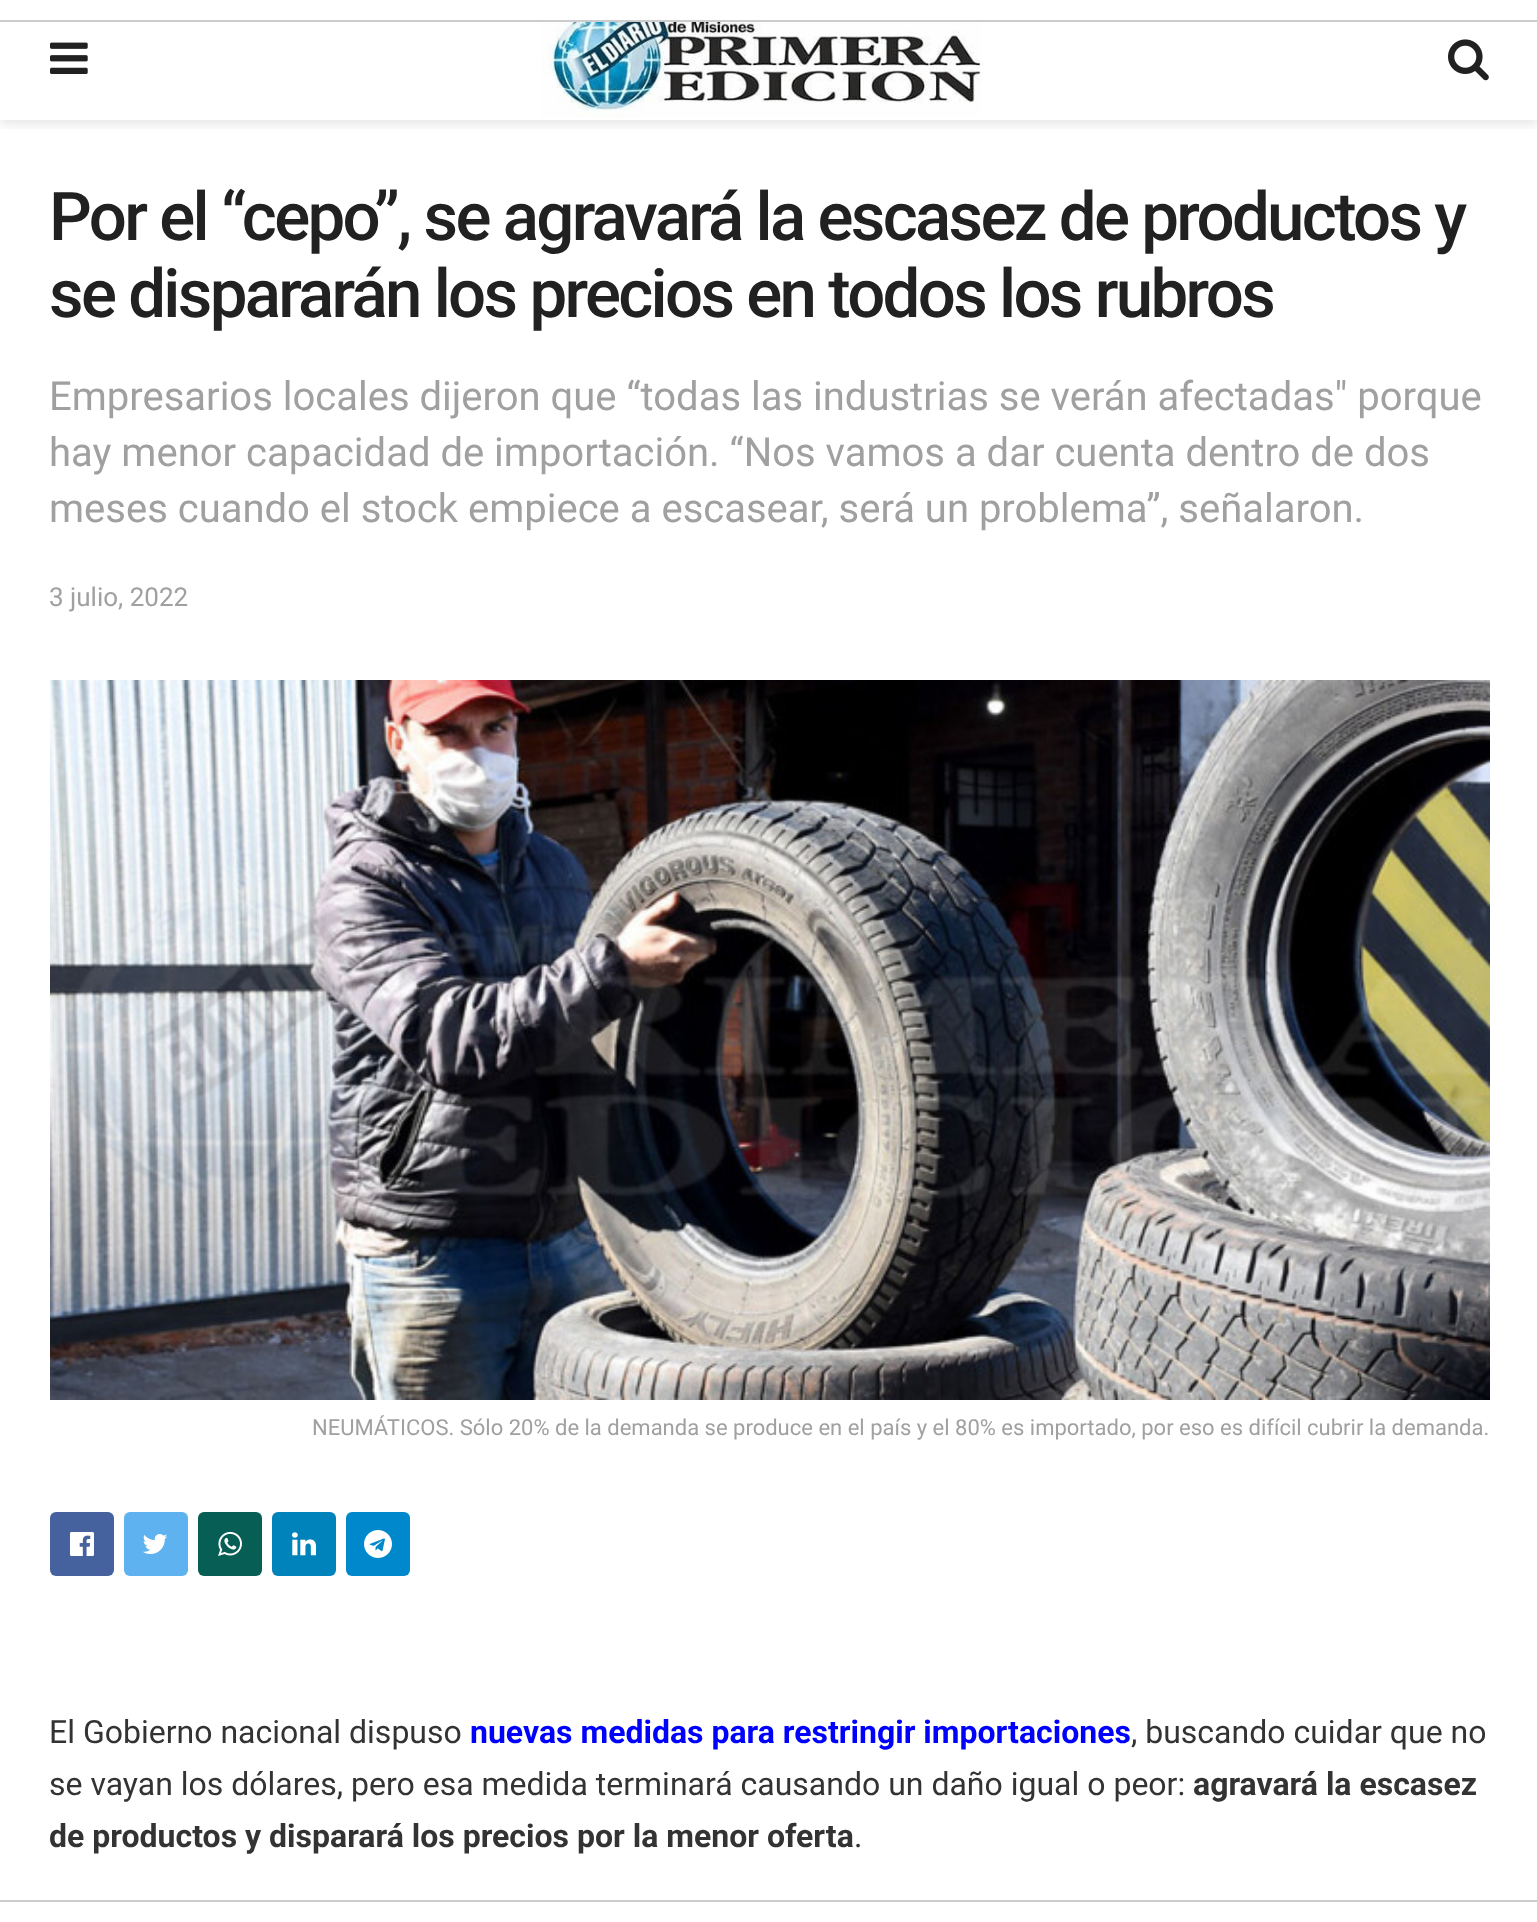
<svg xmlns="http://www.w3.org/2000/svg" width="1537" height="1922">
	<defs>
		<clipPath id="clip1"><rect x="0" y="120" width="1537" height="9" /></clipPath>
	</defs>
	<rect width="100%" height="100%" fill="#FFFFFF" />
	<g clip-path="url(#clip1)">
		<rect x="0" y="4" width="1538" height="120" fill="#000000" fill-opacity="0.1" filter="blur(6px)" />
	</g>
	<rect x="0" y="20" width="1537" height="2" fill="#CCCCCC" />
	<image x="50" y="42" width="38" height="32" href="assets/img1.png" />
	<image x="541" y="22" width="440" height="96" href="assets/img2.png" />
	<image x="1448" y="39" width="41" height="42" href="assets/img3.png" />
	<g font-family="Roboto" font-size="67.2" font-weight="500" letter-spacing="-2.7" fill="#212121">
		<text x="49" y="240">Por el “cepo”, se agravará la escasez de productos y</text>
		<text x="49" y="317">se dispararán los precios en todos los rubros</text>
	</g>
	<g font-family="Roboto" font-size="40" fill="#A0A0A0">
		<text x="49" y="410">Empresarios locales dijeron que “todas las industrias se verán afectadas" porque</text>
		<text x="49" y="466">hay menor capacidad de importación. “Nos vamos a dar cuenta dentro de dos</text>
		<text x="49" y="522">meses cuando el stock empiece a escasear, será un problema”, señalaron.</text>
	</g>
	<text x="49" y="606" font-family="Roboto" font-size="26" fill="#A0A0A0">3 julio, 2022</text>
	<image x="50" y="680" width="1440" height="720" href="assets/img4.png" />
	<text x="312" y="1435" font-family="Roboto" font-size="22" fill="#A0A0A0">NEUMÁTICOS. Sólo 20% de la demanda se produce en el país y el 80% es importado, por eso es difícil cubrir la demanda.</text>
	<rect x="50" y="1512" width="64" height="64" rx="6" fill="#45629F" />
	<image x="70" y="1532" width="24" height="24" href="assets/img5.png" />
	<rect x="124" y="1512" width="64" height="64" rx="6" fill="#5EB2EF" />
	<image x="142" y="1534" width="26" height="20" href="assets/img6.png" />
	<rect x="198" y="1512" width="64" height="64" rx="6" fill="#075E54" />
	<image x="218" y="1531" width="24" height="25" href="assets/img7.png" />
	<rect x="272" y="1512" width="64" height="64" rx="6" fill="#0083BB" />
	<image x="292" y="1532" width="24" height="24" href="assets/img8.png" />
	<rect x="346" y="1512" width="64" height="64" rx="6" fill="#0088CC" />
	<image x="364" y="1530" width="28" height="28" href="assets/img9.png" />
	<text x="49" y="1743" font-family="Roboto" font-size="32" fill="#333333">El Gobierno nacional dispuso</text>
	<text x="470" y="1743" font-family="Roboto" font-size="32" font-weight="700" fill="#0000FF">nuevas medidas para restringir importaciones</text>
	<g font-family="Roboto" font-size="32" fill="#333333">
		<text x="1131" y="1743">, buscando cuidar que no</text>
		<text x="49" y="1795">se vayan los dólares, pero esa medida terminará causando un daño igual o peor:</text>
	</g>
	<g font-family="Roboto" font-size="32" font-weight="700" fill="#333333">
		<text x="1193" y="1795">agravará la escasez</text>
		<text x="49" y="1847">de productos y disparará los precios por la menor oferta</text>
	</g>
	<text x="854" y="1847" font-family="Roboto" font-size="32" fill="#333333">.</text>
	<rect x="0" y="1900" width="1537" height="2" fill="#CCCCCC" />
</svg>
